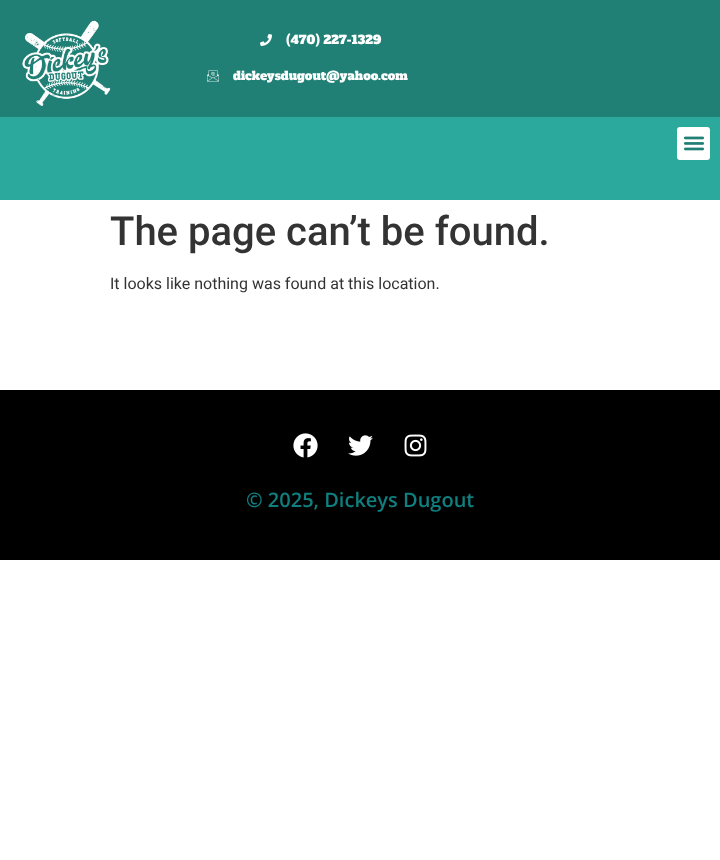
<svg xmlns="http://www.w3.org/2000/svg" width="720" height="860">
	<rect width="100%" height="100%" fill="#FFFFFF" />
	<rect x="0" y="0" width="720" height="117" fill="#218076" />
	<image x="22" y="20" width="89" height="86" href="assets/img1.png" />
	<image x="260" y="34" width="12" height="12" href="assets/img2.png" />
	<text x="286" y="44" font-family="Alfa Slab One" font-size="12" fill="#FFFFFF">(470) 227-1329</text>
	<image x="207" y="70" width="12" height="12" href="assets/img3.png" />
	<text x="233" y="80" font-family="Alfa Slab One" font-size="12" fill="#FFFFFF">dickeysdugout@yahoo.com</text>
	<rect x="0" y="117" width="720" height="83" fill="#2BA99C" />
	<rect x="677" y="127" width="33" height="33" rx="3" fill="#FFFFFF" />
	<image x="683" y="136" width="22" height="15" href="assets/img4.png" />
	<text x="110" y="245" font-family="Roboto" font-size="40" font-weight="500" fill="#333333">The page can’t be found.</text>
	<text x="110" y="289" font-family="Roboto" font-size="16" fill="#333333">It looks like nothing was found at this location.</text>
	<rect x="0" y="390" width="720" height="170" fill="#000000" />
	<image x="293" y="433" width="25" height="25" href="assets/img5.png" />
	<image x="348" y="435" width="25" height="21" href="assets/img6.png" />
	<image x="404" y="434" width="23" height="23" href="assets/img7.png" />
	<text x="246" y="507" font-family="Open Sans" font-size="20" font-weight="600" fill="#0F7F7F">© 2025, Dickeys Dugout</text>
</svg>
